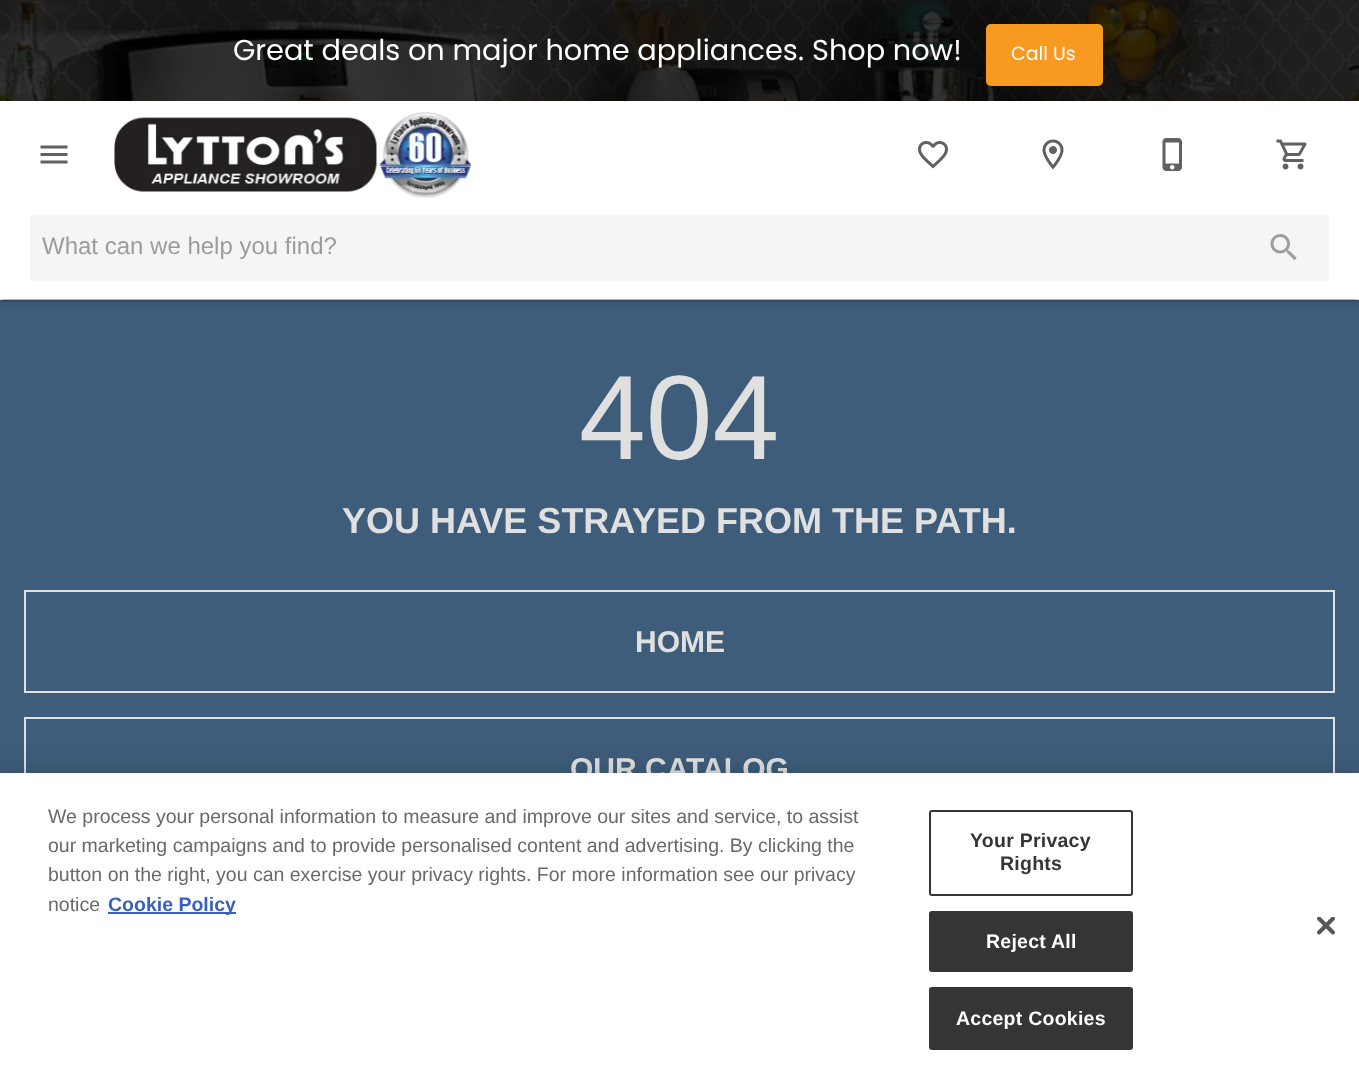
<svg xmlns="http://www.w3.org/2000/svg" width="1359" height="1079">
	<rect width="100%" height="100%" fill="#FFFFFF" />
	<image x="0" y="0" width="1359" height="101" href="assets/img1.png" />
	<g font-family="Poppins" font-size="28.75" fill="#FFFFFF">
		<text x="233" y="60">Great deals on major home appliances.</text>
		<text x="812" y="60">Shop now!</text>
	</g>
	<rect x="987" y="25" width="115" height="60" rx="4" fill="#F89920" stroke="#F89920" stroke-width="2" />
	<text x="1011" y="60" font-family="Poppins" font-size="19" fill="#FFFFFF">Call Us</text>
	<rect x="0" y="300" width="1359" height="473" fill="#3E5D7B" />
	<rect x="0" y="102" width="1359" height="198" fill="#000000" fill-opacity="0.12" filter="blur(4px)" />
	<rect x="0" y="104" width="1359" height="198" fill="#000000" fill-opacity="0.14" filter="blur(1.5px)" />
	<rect x="3" y="108" width="1353" height="192" fill="#000000" fill-opacity="0.2" filter="blur(1px)" />
	<rect x="0" y="101" width="1359" height="198" fill="#FFFFFF" />
	<image x="40" y="145" width="28" height="19" href="assets/img2.png" />
	<image x="114" y="112" width="357" height="86" href="assets/img3.png" />
	<image x="918" y="141" width="30" height="28" href="assets/img4.png" />
	<image x="1042" y="139" width="22" height="31" href="assets/img5.png" />
	<image x="1162" y="138" width="20" height="33" href="assets/img6.png" />
	<image x="1276" y="139" width="31" height="31" href="assets/img7.png" />
	<rect x="30" y="215" width="1299" height="66" fill="#F5F5F5" />
	<text x="42" y="254" font-family="Liberation Sans" font-size="24" fill="#9C9C9C">What can we help you find?</text>
	<image x="1270" y="234" width="27" height="27" href="assets/img8.png" />
	<text x="579" y="459" font-family="Liberation Sans" font-size="120" fill="#E0E0E0">404</text>
	<text x="342" y="533" font-family="Liberation Sans" font-size="36" font-weight="700" fill="#E0E0E0">YOU HAVE STRAYED FROM THE PATH.</text>
	<rect x="25" y="591" width="1309" height="101" fill="none" stroke="#E0E0E0" stroke-width="2" />
	<text x="635" y="652" font-family="Liberation Sans" font-size="30" font-weight="700" fill="#E0E0E0">HOME</text>
	<rect x="25" y="718" width="1309" height="102" fill="none" stroke="#E0E0E0" stroke-width="2" />
	<text x="570" y="779" font-family="Liberation Sans" font-size="30" font-weight="700" fill="#E0E0E0">OUR CATALOG</text>
	<rect x="0" y="773" width="1359" height="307" fill="#000000" fill-opacity="0.2" filter="blur(13.5px)" />
	<rect x="0" y="773" width="1359" height="306" fill="#FFFFFF" />
	<g font-family="Liberation Sans" font-size="19.5" fill="#696969">
		<text x="48" y="823">We process your personal information to measure and improve our sites and service, to assist</text>
		<text x="48" y="852">our marketing campaigns and to provide personalised content and advertising. By clicking the</text>
		<text x="48" y="881">button on the right, you can exercise your privacy rights. For more information see our privacy</text>
		<text x="48" y="911">notice</text>
	</g>
	<rect x="108" y="912" width="128" height="2" fill="#3860BE" />
	<text x="108" y="911" font-family="Liberation Sans" font-size="19.5" font-weight="700" fill="#3860BE">Cookie Policy</text>
	<rect x="930" y="811" width="202" height="84" rx="2" fill="none" stroke="#353535" stroke-width="2" />
	<g font-family="Liberation Sans" font-size="19.5" font-weight="700" letter-spacing="0.25" fill="#353535">
		<text x="970" y="847">Your Privacy</text>
		<text x="1000" y="870">Rights</text>
	</g>
	<rect x="930" y="912" width="202" height="59" rx="2" fill="#353535" stroke="#353535" stroke-width="2" />
	<text x="986" y="948" font-family="Liberation Sans" font-size="19.5" font-weight="700" letter-spacing="0.25" fill="#FFFFFF">Reject All</text>
	<rect x="930" y="988" width="202" height="61" rx="2" fill="#353535" stroke="#353535" stroke-width="2" />
	<text x="956" y="1025" font-family="Liberation Sans" font-size="19.5" font-weight="700" letter-spacing="0.25" fill="#FFFFFF">Accept Cookies</text>
	<image x="1317" y="917" width="18" height="18" href="assets/img9.png" />
</svg>
